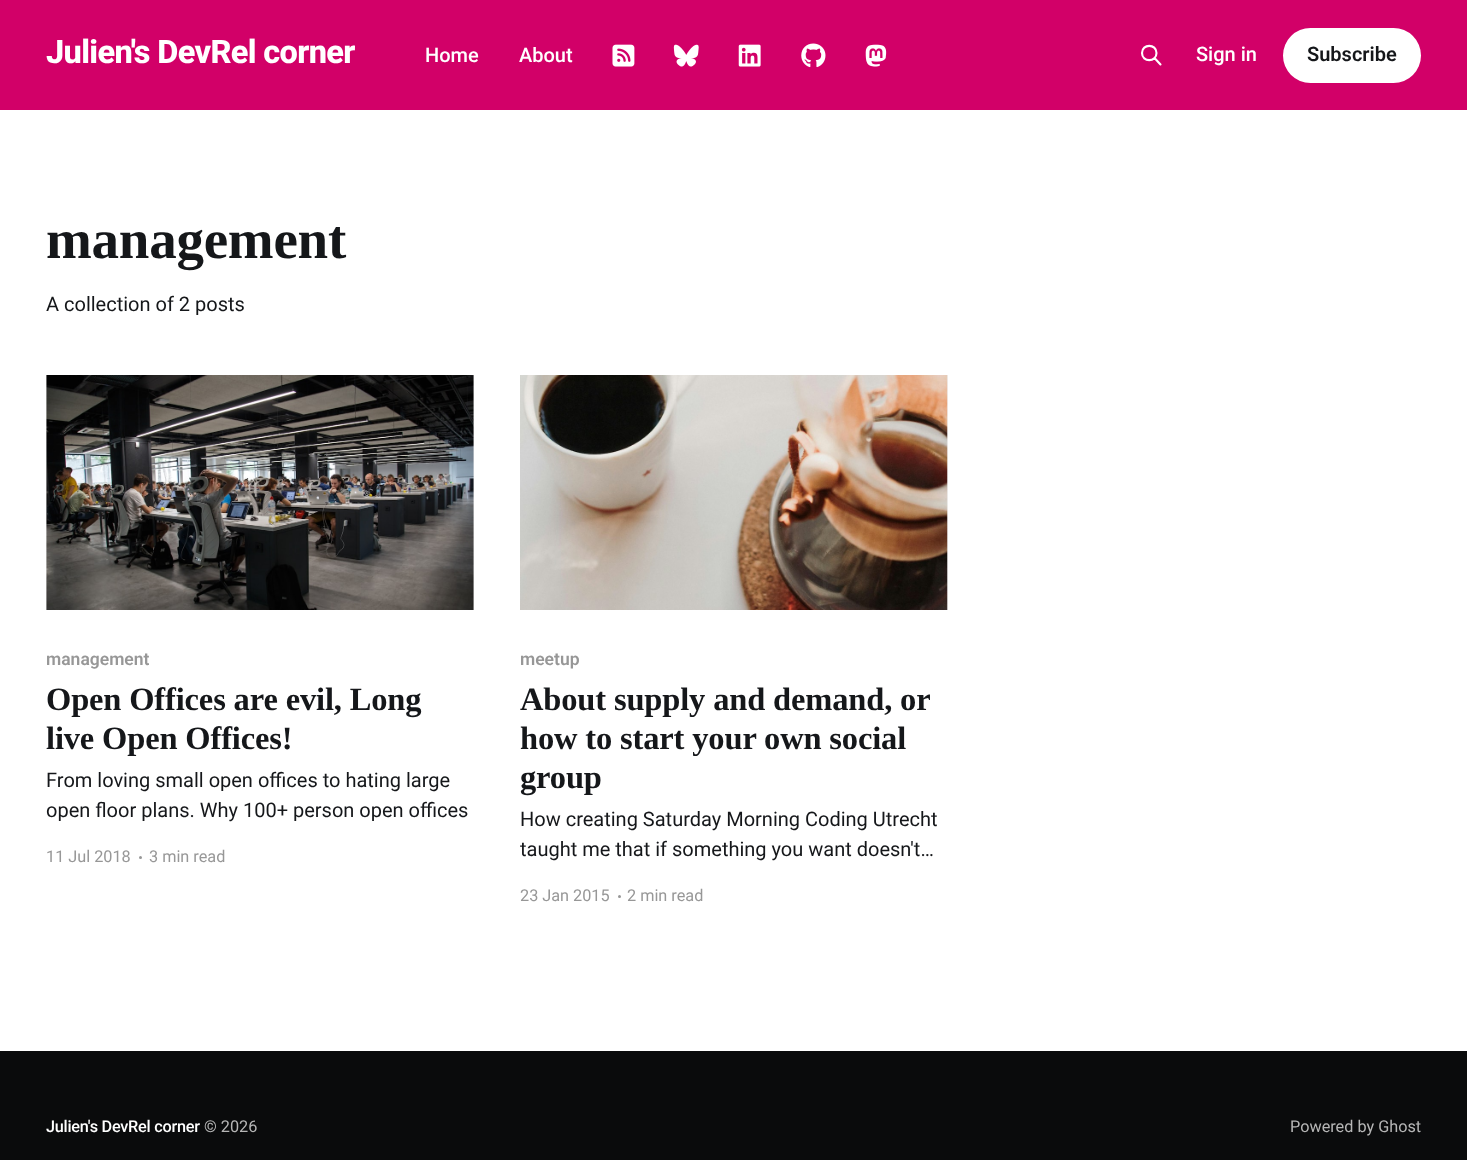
<svg xmlns="http://www.w3.org/2000/svg" width="1467" height="1160">
	<rect width="100%" height="100%" fill="#FFFFFF" />
	<rect x="0" y="0" width="1467" height="110" fill="#D20068" />
	<text x="46" y="63" font-family="Roboto" font-size="32.5" font-weight="800" letter-spacing="-0.65" fill="#FFFFFF">Julien's DevRel corner</text>
	<g font-family="Roboto" font-size="20" font-weight="500" fill="#FFFFFF">
		<text x="425" y="62">Home</text>
		<text x="519" y="62">About</text>
	</g>
	<image x="612" y="44" width="23" height="23" href="assets/img1.png" />
	<image x="673" y="44" width="26" height="23" href="assets/img2.png" />
	<image x="738" y="44" width="23" height="23" href="assets/img3.png" />
	<image x="801" y="43" width="25" height="25" href="assets/img4.png" />
	<image x="865" y="44" width="22" height="23" href="assets/img5.png" />
	<path d="M1160.5 64.5L1154.5 58M1156.5 53C1156.5 62.5 1142 62.5 1142 53C1142 43.5 1156.5 43.5 1156.5 53Z" fill="none" stroke="#FFFFFF" stroke-width="2.1" stroke-linecap="round" stroke-linejoin="round" />
	<text x="1196" y="61" font-family="Roboto" font-size="20" font-weight="500" fill="#FFFFFF">Sign in</text>
	<rect x="1283" y="28" width="138" height="55" rx="27.5" fill="#FFFFFF" />
	<text x="1307" y="61" font-family="Roboto" font-size="20" font-weight="600" fill="#15171A">Subscribe</text>
	<text x="46" y="258" font-family="Liberation Serif" font-size="55" font-weight="700" letter-spacing="-0.25" fill="#15171A">management</text>
	<text x="46" y="311" font-family="Roboto" font-size="20" fill="#15171A">A collection of 2 posts</text>
	<rect x="46" y="375" width="428" height="235" fill="#F1F1F1" />
	<image x="46" y="375" width="428" height="235" href="assets/img6.png" />
	<text x="46" y="665" font-family="Roboto" font-size="17.5" font-weight="600" fill="#979797">management</text>
	<g font-family="Liberation Serif" font-size="32.5" font-weight="700" letter-spacing="-0.15" fill="#15171A">
		<text x="46" y="710">Open Offices are evil, Long</text>
		<text x="46" y="749">live Open Offices!</text>
	</g>
	<g font-family="Roboto" font-size="20" fill="#15171A">
		<text x="46" y="787">From loving small open offices to hating large</text>
		<text x="46" y="817">open floor plans. Why 100+ person open offices</text>
	</g>
	<text x="46" y="862" font-family="Roboto" font-size="16.25" fill="#979797">11 Jul 2018</text>
	<circle cx="140.5" cy="857.5" r="1.5" fill="#979797" />
	<text x="149" y="862" font-family="Roboto" font-size="16.25" fill="#979797">3 min read</text>
	<rect x="947" y="375" width="1" height="235" fill="#F1F1F1" />
	<image x="520" y="375" width="428" height="235" href="assets/img7.png" />
	<text x="520" y="665" font-family="Roboto" font-size="17.5" font-weight="600" fill="#979797">meetup</text>
	<g font-family="Liberation Serif" font-size="32.5" font-weight="700" letter-spacing="-0.15" fill="#15171A">
		<text x="520" y="710">About supply and demand, or</text>
		<text x="520" y="749">how to start your own social</text>
		<text x="520" y="788">group</text>
	</g>
	<g font-family="Roboto" font-size="20" fill="#15171A">
		<text x="520" y="826">How creating Saturday Morning Coding Utrecht</text>
		<text x="520" y="856">taught me that if something you want doesn't…</text>
	</g>
	<text x="520" y="901" font-family="Roboto" font-size="16.25" fill="#979797">23 Jan 2015</text>
	<circle cx="619.5" cy="896.5" r="1.5" fill="#979797" />
	<text x="627" y="901" font-family="Roboto" font-size="16.25" fill="#979797">2 min read</text>
	<rect x="0" y="1051" width="1467" height="109" fill="#0A0B0C" />
	<text x="46" y="1132" font-family="Roboto" font-size="16.25" font-weight="500" letter-spacing="-0.25" fill="#FFFFFF">Julien's DevRel corner</text>
	<g font-family="Roboto" font-size="16.25" fill="#B6B6B6">
		<text x="204" y="1132">© 2026</text>
		<text x="1290" y="1132">Powered by Ghost</text>
	</g>
</svg>
